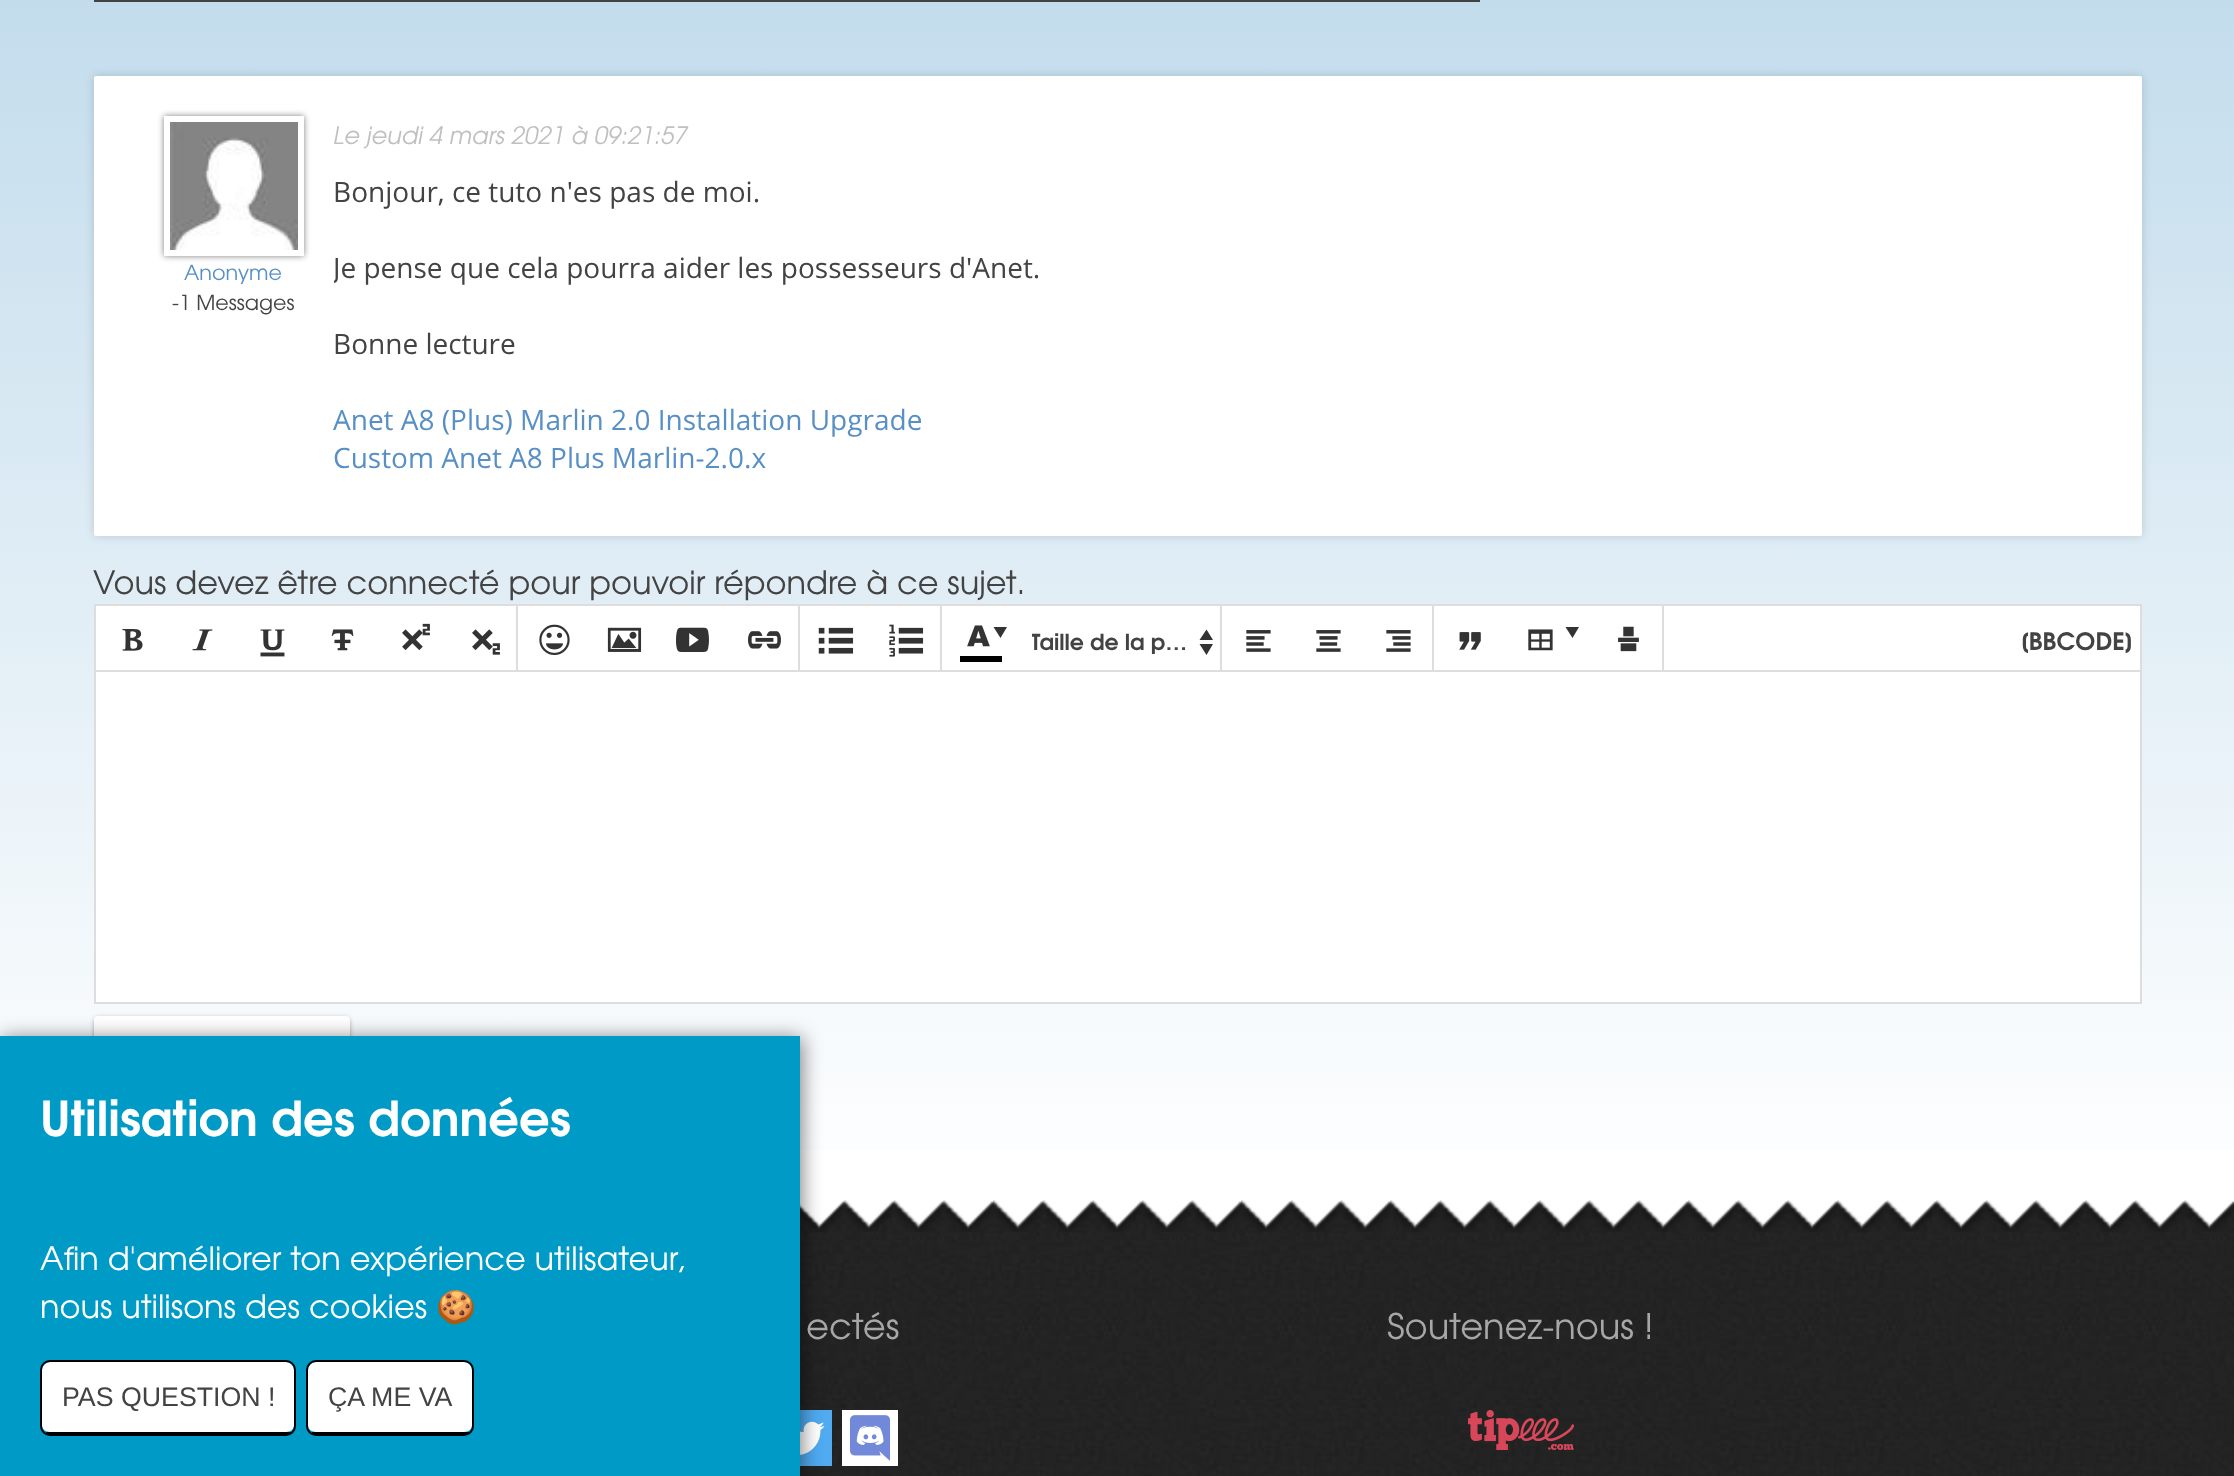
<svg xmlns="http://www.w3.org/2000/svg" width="2234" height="1476">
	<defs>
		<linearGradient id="g1" gradientUnits="userSpaceOnUse" x1="1117" y1="-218" x2="1117" y2="1200"><stop offset="0" stop-color="#B8D6E9" /><stop offset="1" stop-color="#FFFFFF" /></linearGradient>
		<clipPath id="clip1"><rect x="334" y="116" width="1768" height="380" /></clipPath>
		<clipPath id="clip2"><rect x="1032" y="610" width="164" height="56" /></clipPath>
	</defs>
	<rect width="100%" height="100%" fill="#FFFFFF" />
	<rect x="0" y="0" width="2234" height="1150" fill="url(#g1)" />
	<rect x="94" y="0" width="1386" height="2" fill="#434343" />
	<rect x="94" y="76" width="2048" height="460" rx="2" fill="#000000" fill-opacity="0.15" filter="blur(5px)" />
	<rect x="94" y="76" width="2048" height="460" rx="2" fill="#FFFFFF" />
	<rect x="164" y="116" width="140" height="140" fill="#000000" fill-opacity="0.5" filter="blur(3px)" />
	<rect x="167" y="119" width="134" height="134" fill="none" stroke="#FFFFFF" stroke-width="6" />
	<image x="170" y="122" width="128" height="128" href="assets/img1.png" />
	<text x="184" y="280" font-family="TeX Gyre Adventor" font-size="20.75" fill="#5890C5">Anonyme</text>
	<text x="172" y="310" font-family="TeX Gyre Adventor" font-size="20.75" fill="#434343">-1 Messages</text>
	<text x="333" y="144" font-family="TeX Gyre Adventor" font-size="24" font-style="italic" fill="#C0C0C0">Le jeudi 4 mars 2021 à 09:21:57</text>
	<text x="333" y="202" font-family="Open Sans" font-size="28" fill="#434343">Bonjour, ce tuto n'es pas de moi.</text>
	<g clip-path="url(#clip1)">
		<text x="333" y="278" font-family="Open Sans" font-size="28" fill="#434343">Je pense que cela pourra aider les possesseurs d'Anet.</text>
	</g>
	<text x="333" y="354" font-family="Open Sans" font-size="28" fill="#434343">Bonne lecture</text>
	<g font-family="Open Sans" font-size="28" fill="#5890C5">
		<text x="333" y="430">Anet A8 (Plus) Marlin 2.0 Installation Upgrade</text>
		<text x="333" y="468">Custom Anet A8 Plus Marlin-2.0.x</text>
	</g>
	<text x="93" y="594" font-family="TeX Gyre Adventor" font-size="32" fill="#434343">Vous devez être connecté pour pouvoir répondre à ce sujet.</text>
	<rect x="95" y="605" width="2046" height="398" fill="#FFFFFF" stroke="#DDDDDD" stroke-width="2" />
	<rect x="96" y="670" width="2044" height="2" fill="#DDDDDD" />
	<rect x="516" y="606" width="2" height="64" fill="#DDDDDD" />
	<image x="122" y="629" width="21" height="22" href="assets/img2.png" />
	<image x="192" y="629" width="21" height="22" href="assets/img3.png" />
	<image x="260" y="629" width="25" height="28" href="assets/img4.png" />
	<image x="331" y="629" width="23" height="22" href="assets/img5.png" />
	<image x="402" y="623" width="28" height="28" href="assets/img6.png" />
	<image x="472" y="629" width="28" height="26" href="assets/img7.png" />
	<rect x="798" y="606" width="2" height="64" fill="#DDDDDD" />
	<image x="539" y="624" width="31" height="31" href="assets/img8.png" />
	<image x="607" y="627" width="35" height="25" href="assets/img9.png" />
	<image x="676" y="627" width="33" height="25" href="assets/img10.png" />
	<image x="748" y="631" width="33" height="18" href="assets/img11.png" />
	<rect x="940" y="606" width="2" height="64" fill="#DDDDDD" />
	<image x="818" y="627" width="36" height="27" href="assets/img12.png" />
	<image x="889" y="624" width="35" height="33" href="assets/img13.png" />
	<rect x="1220" y="606" width="2" height="64" fill="#DDDDDD" />
	<image x="967" y="625" width="23" height="22" href="assets/img14.png" />
	<rect x="960" y="656" width="42" height="6" fill="#000000" />
	<path d="M993.5 627H1007L1000.5 638Z" fill="#333333" />
	<g clip-path="url(#clip2)">
		<text x="1031" y="650" font-family="TeX Gyre Adventor" font-size="22" font-weight="700" fill="#434343">Taille de la p…</text>
	</g>
	<path d="M1199.5 644H1213L1206.5 655ZM1199.5 640L1206.5 629.5L1213 640Z" fill="#333333" />
	<rect x="1432" y="606" width="2" height="64" fill="#DDDDDD" />
	<image x="1246" y="630" width="25" height="22" href="assets/img15.png" />
	<image x="1316" y="630" width="25" height="22" href="assets/img16.png" />
	<image x="1386" y="630" width="25" height="22" href="assets/img17.png" />
	<rect x="1662" y="606" width="2" height="64" fill="#DDDDDD" />
	<image x="1459" y="632" width="22" height="18" href="assets/img18.png" />
	<image x="1528" y="629" width="25" height="22" href="assets/img19.png" />
	<path d="M1565.5 627H1579L1572.5 638Z" fill="#333333" />
	<image x="1618" y="626" width="21" height="26" href="assets/img20.png" />
	<text x="2021" y="650" font-family="TeX Gyre Adventor" font-size="24" font-weight="700" fill="#434343">[BBCODE]</text>
	<rect x="94" y="1020" width="256" height="72" rx="4" fill="#000000" fill-opacity="0.2" filter="blur(2px)" />
	<rect x="94" y="1016" width="256" height="72" rx="4" fill="#000000" fill-opacity="0.12" filter="blur(2px)" />
	<rect x="94" y="1016" width="256" height="72" rx="4" fill="#FFFFFF" />
	<image x="800" y="1200" width="1434" height="276" href="assets/img21.png" />
	<image x="800" y="1200" width="1434" height="32" href="assets/img22.png" />
	<image x="800" y="1410" width="32" height="56" href="assets/img23.png" />
	<rect x="2" y="1038" width="800" height="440" fill="#000000" fill-opacity="0.5" filter="blur(10px)" />
	<rect x="0" y="1036" width="800" height="440" fill="#009AC7" />
	<text x="40" y="1136" font-family="TeX Gyre Adventor" font-size="48" font-weight="700" fill="#FFFFFF">Utilisation des données</text>
	<g font-family="TeX Gyre Adventor" font-size="32" fill="#FFFFFF">
		<text x="40" y="1270">Afin d'améliorer ton expérience utilisateur,</text>
		<text x="40" y="1318">nous utilisons des cookies</text>
	</g>
	<text x="436" y="1318" font-family="Noto Color Emoji" font-size="32" fill="#FFFFFF">🍪</text>
	<path d="M50 1362H286C290 1362 294 1366 294 1370V1426C294 1429 290 1432 286 1432H50C46 1432 42 1429 42 1426V1370C42 1366 46 1362 50 1362Z" fill="#FFFFFF" />
	<rect x="41" y="1361" width="254" height="74" rx="9" fill="none" stroke="#000000" stroke-width="2" />
	<rect x="46" y="1432" width="246" height="2" fill="#000000" />
	<text x="62" y="1406" font-family="Liberation Sans" font-size="26.75" fill="#434343">PAS QUESTION !</text>
	<path d="M316 1362H464C468 1362 472 1366 472 1370V1426C472 1429 468 1432 464 1432H316C312 1432 308 1429 308 1426V1370C308 1366 312 1362 316 1362Z" fill="#FFFFFF" />
	<rect x="307" y="1361" width="166" height="74" rx="9" fill="none" stroke="#000000" stroke-width="2" />
	<rect x="312" y="1432" width="158" height="2" fill="#000000" />
	<text x="328" y="1406" font-family="Liberation Sans" font-size="26.75" fill="#434343">ÇA ME VA</text>
	<text x="806" y="1339" font-family="TeX Gyre Adventor" font-size="35.25" fill="#A7A7A7">ectés</text>
	<rect x="842" y="1410" width="56" height="56" fill="#FFFFFF" />
	<image x="850" y="1415" width="40" height="46" href="assets/img24.png" />
	<text x="1387" y="1339" font-family="TeX Gyre Adventor" font-size="35.25" fill="#A7A7A7">Soutenez-nous !</text>
	<image x="1468" y="1410" width="106" height="40" href="assets/img25.png" />
</svg>
